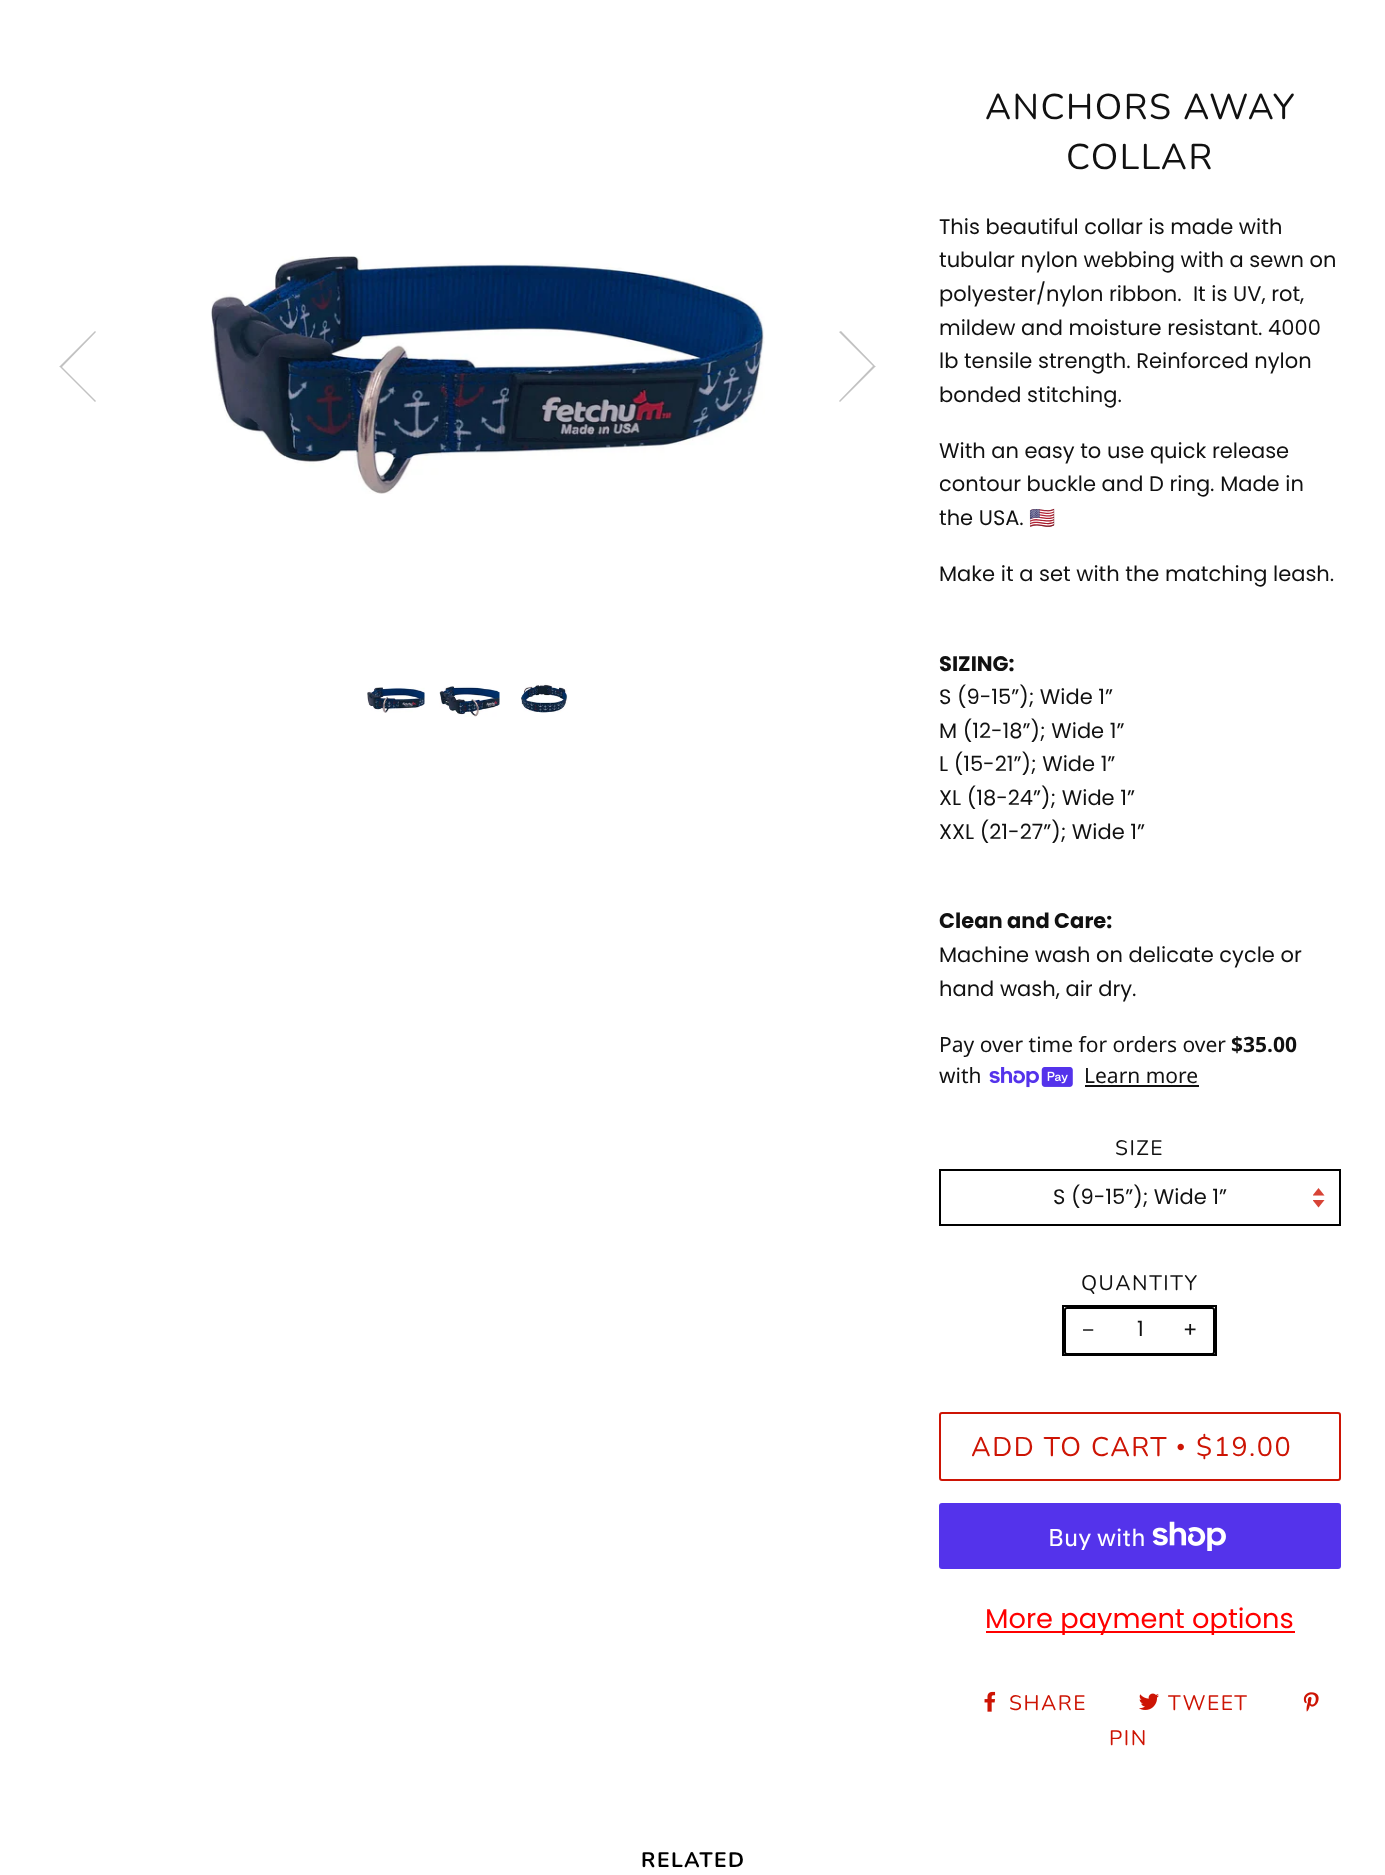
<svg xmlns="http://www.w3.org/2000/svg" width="1385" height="1875">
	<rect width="100%" height="100%" fill="#FFFFFF" />
	<path d="M60 367L95 402L96 401L62 367L96 332L95 331L59 367Z" fill="#C2C2C2" />
	<image x="211" y="256" width="554" height="238" href="assets/img1.png" />
	<path d="M875 366L841 331L839 332L873 366L839 401L840 402L876 366Z" fill="#C2C2C2" />
	<image x="367" y="687" width="58" height="26" href="assets/img2.png" />
	<image x="439" y="686" width="61" height="31" href="assets/img3.png" />
	<image x="521" y="683" width="47" height="30" href="assets/img4.png" />
	<g font-family="Nunito" font-size="35.75" letter-spacing="1.5" fill="#111111">
		<text x="985" y="119">ANCHORS AWAY</text>
		<text x="1066" y="169">COLLAR</text>
	</g>
	<g font-family="Poppins" font-size="21" fill="#111111">
		<text x="939" y="234">This beautiful collar is made with</text>
		<text x="939" y="267">tubular nylon webbing with a sewn on</text>
		<text x="939" y="301" xml:space="preserve">polyester/nylon ribbon.  It is UV, rot,</text>
		<text x="939" y="335">mildew and moisture resistant. 4000</text>
		<text x="939" y="368">lb tensile strength. Reinforced nylon</text>
		<text x="939" y="402">bonded stitching.</text>
		<text x="939" y="458">With an easy to use quick release</text>
		<text x="939" y="491">contour buckle and D ring. Made in</text>
		<text x="939" y="525">the USA.</text>
	</g>
	<text x="1029" y="525" font-family="Noto Color Emoji" font-size="21" fill="#111111">🇺🇸</text>
	<text x="939" y="581" font-family="Poppins" font-size="21" fill="#111111">Make it a set with the matching leash.</text>
	<text x="939" y="671" font-family="Poppins" font-size="21" font-weight="700" fill="#111111">SIZING:</text>
	<g font-family="Poppins" font-size="21" fill="#111111">
		<text x="939" y="704">S (9-15”); Wide 1”</text>
		<text x="939" y="738">M (12-18”); Wide 1”</text>
		<text x="939" y="771">L (15-21”); Wide 1”</text>
		<text x="939" y="805">XL (18-24”); Wide 1”</text>
		<text x="939" y="839">XXL (21-27”); Wide 1”</text>
	</g>
	<text x="939" y="928" font-family="Poppins" font-size="21" font-weight="700" fill="#111111">Clean and Care:</text>
	<g font-family="Poppins" font-size="21" fill="#111111">
		<text x="939" y="962">Machine wash on delicate cycle or</text>
		<text x="939" y="996">hand wash, air dry.</text>
	</g>
	<text x="939" y="1052" font-family="Noto Sans" font-size="21" fill="#111111">Pay over time for orders over</text>
	<text x="1231" y="1052" font-family="Noto Sans" font-size="21" font-weight="700" fill="#111111">$35.00</text>
	<text x="939" y="1083" font-family="Noto Sans" font-size="21" fill="#111111">with</text>
	<image x="989" y="1067" width="84" height="21" href="assets/img5.png" />
	<text x="1084" y="1083" font-family="Noto Sans" font-size="21" fill="#111111">Learn more</text>
	<rect x="1085" y="1085" width="114" height="2" fill="#111111" />
	<text x="1115" y="1155" font-family="Nunito" font-size="21" letter-spacing="1.5" fill="#111111">SIZE</text>
	<image x="1313" y="1188" width="12" height="20" href="assets/img6.png" />
	<rect x="940" y="1170" width="400" height="55" fill="none" stroke="#000000" stroke-width="2" />
	<text x="1053" y="1204" font-family="Poppins" font-size="21" fill="#111111">S (9-15”); Wide 1”</text>
	<text x="1081" y="1290" font-family="Nunito" font-size="21" letter-spacing="1.5" fill="#111111">QUANTITY</text>
	<rect x="1063" y="1306" width="153" height="49" fill="none" stroke="#000000" stroke-width="2" />
	<rect x="1065" y="1308" width="149" height="46" rx="2" fill="none" stroke="#000000" stroke-width="2" />
	<text x="1082" y="1337" font-family="Liberation Sans" font-size="21" fill="#111111">−</text>
	<g font-family="Poppins" font-size="21" fill="#111111">
		<text x="1137" y="1336">1</text>
		<text x="1183" y="1337">+</text>
	</g>
	<rect x="940" y="1413" width="400" height="67" rx="2" fill="none" stroke="#CD1404" stroke-width="2" />
	<text x="971" y="1456" font-family="Nunito" font-size="27" letter-spacing="1.5" fill="#CD1404">ADD TO CART</text>
	<text x="1176" y="1456" font-family="Liberation Serif" font-size="27" letter-spacing="1.5" fill="#CD1404">•</text>
	<text x="1196" y="1456" font-family="Nunito" font-size="27" letter-spacing="1.5" fill="#CD1404">$19.00</text>
	<rect x="939" y="1503" width="402" height="66" rx="3" fill="#5433EB" />
	<text x="1048" y="1546" font-family="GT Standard" font-size="24" fill="#FFFFFF">Buy with</text>
	<image x="1152" y="1521" width="74" height="30" href="assets/img7.png" />
	<rect x="986" y="1631" width="309" height="2" fill="#FF0000" />
	<text x="985" y="1628" font-family="Poppins" font-size="27.25" fill="#FF0000">More payment options</text>
	<image x="984" y="1691" width="12" height="21" href="assets/img8.png" />
	<text x="1009" y="1710" font-family="Nunito" font-size="21" letter-spacing="1.5" fill="#CD1404">SHARE</text>
	<image x="1139" y="1693" width="20" height="17" href="assets/img9.png" />
	<text x="1168" y="1710" font-family="Nunito" font-size="21" letter-spacing="1.5" fill="#CD1404">TWEET</text>
	<image x="1303" y="1692" width="16" height="20" href="assets/img10.png" />
	<text x="1109" y="1745" font-family="Nunito" font-size="21" letter-spacing="1.5" fill="#CD1404">PIN</text>
	<text x="641" y="1867" font-family="Nunito" font-size="21" font-weight="700" letter-spacing="1.5" fill="#000000">RELATED</text>
</svg>
